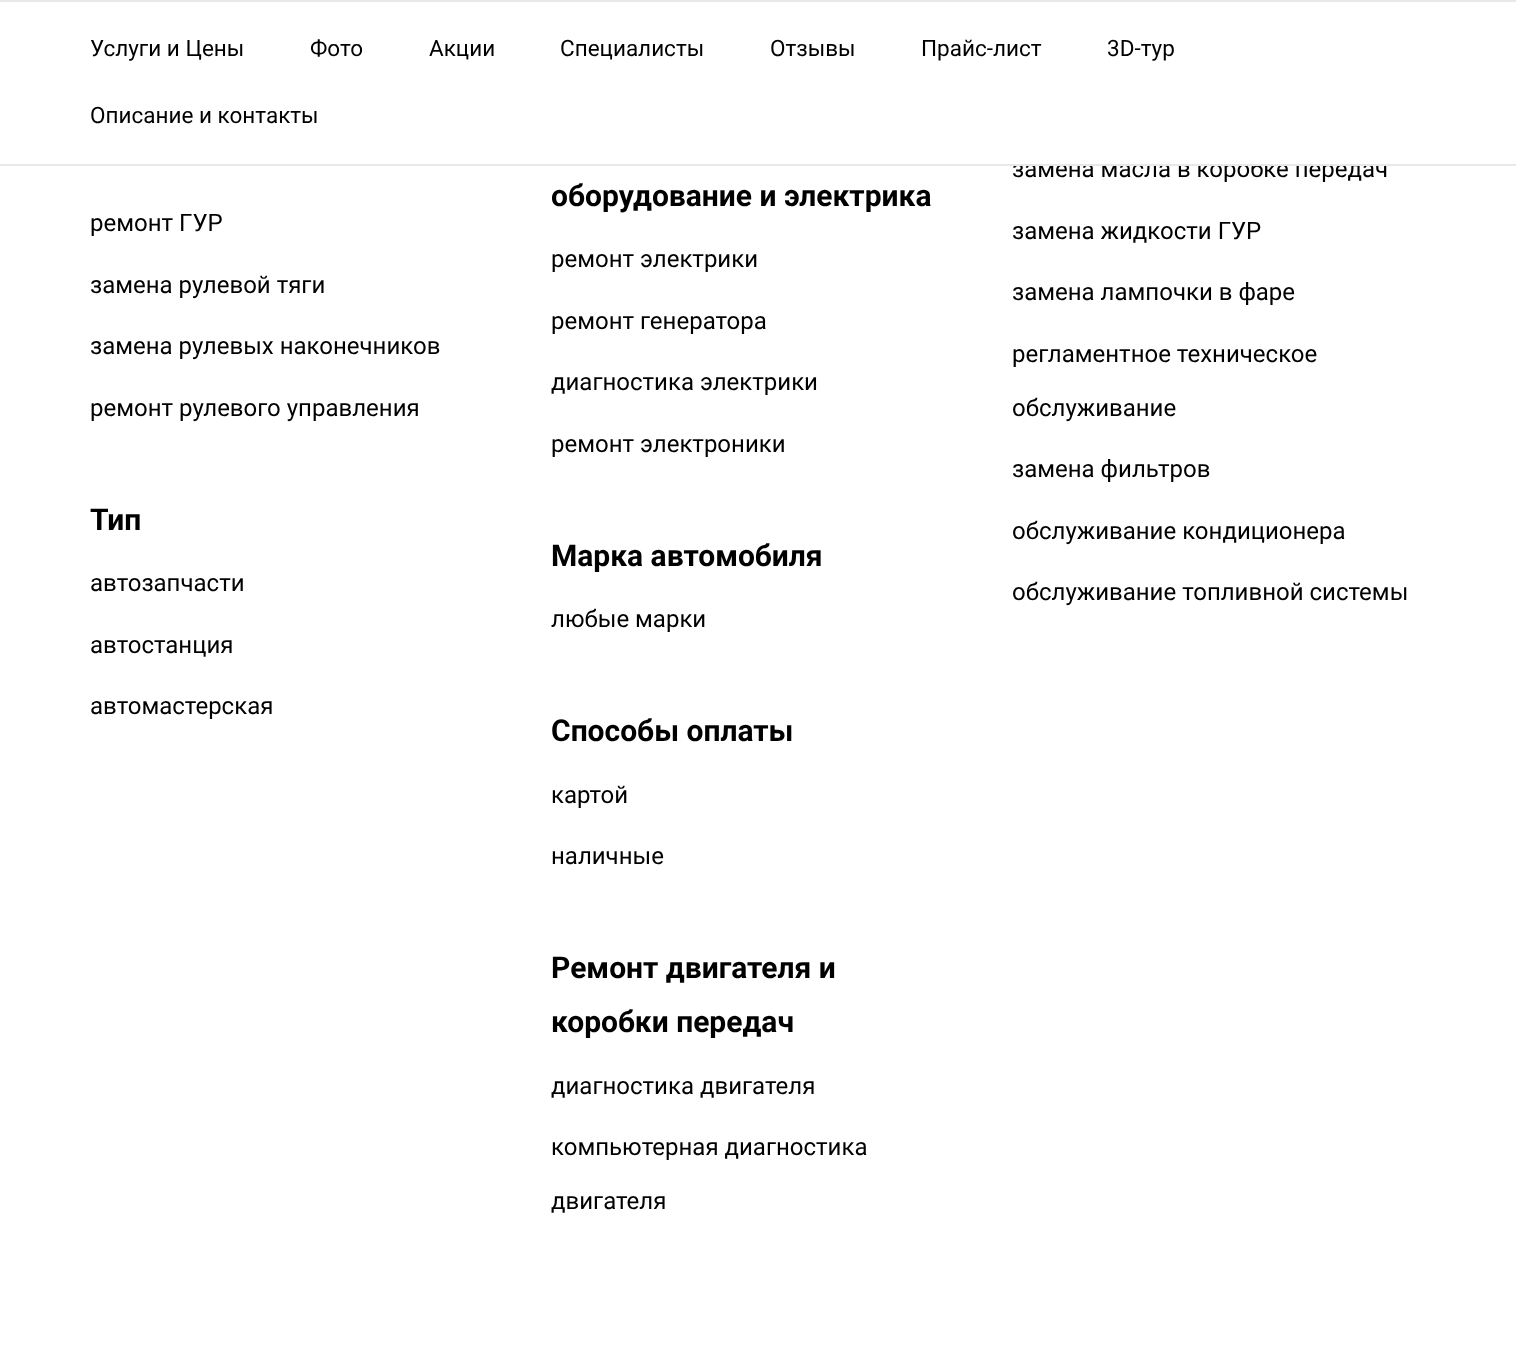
<svg xmlns="http://www.w3.org/2000/svg" width="1516" height="1356">
	<rect width="100%" height="100%" fill="#FFFFFF" />
	<rect x="0" y="0" width="1516" height="2" fill="#E8E8E8" />
	<text x="1012" y="177" font-family="Roboto" font-size="24" fill="#000000">замена масла в коробке передач</text>
	<rect x="0" y="164" width="1516" height="2" fill="#E8E8E8" />
	<rect x="1252" y="158" width="10" height="6" fill="#FFFFFF" />
	<g font-family="Roboto" font-size="22.5" fill="#000000">
		<text x="90" y="56">Услуги и Цены</text>
		<text x="310" y="56">Фото</text>
		<text x="429" y="56">Акции</text>
		<text x="560" y="56">Специалисты</text>
		<text x="770" y="56">Отзывы</text>
		<text x="921" y="56">Прайс-лист</text>
		<text x="1107" y="56">3D-тур</text>
		<text x="90" y="123">Описание и контакты</text>
	</g>
	<g font-family="Roboto" font-size="24" fill="#000000">
		<text x="90" y="231">ремонт ГУР</text>
		<text x="90" y="293">замена рулевой тяги</text>
		<text x="90" y="354">замена рулевых наконечников</text>
		<text x="90" y="416">ремонт рулевого управления</text>
	</g>
	<text x="90" y="530" font-family="Roboto" font-size="30" font-weight="700" fill="#000000">Тип</text>
	<g font-family="Roboto" font-size="24" fill="#000000">
		<text x="90" y="591">автозапчасти</text>
		<text x="90" y="653">автостанция</text>
		<text x="90" y="714">автомастерская</text>
	</g>
	<text x="551" y="206" font-family="Roboto" font-size="30" font-weight="700" fill="#000000">оборудование и электрика</text>
	<g font-family="Roboto" font-size="24" fill="#000000">
		<text x="551" y="267">ремонт электрики</text>
		<text x="551" y="329">ремонт генератора</text>
		<text x="551" y="390">диагностика электрики</text>
		<text x="551" y="452">ремонт электроники</text>
	</g>
	<text x="551" y="566" font-family="Roboto" font-size="30" font-weight="700" fill="#000000">Марка автомобиля</text>
	<text x="551" y="627" font-family="Roboto" font-size="24" fill="#000000">любые марки</text>
	<text x="551" y="741" font-family="Roboto" font-size="30" font-weight="700" fill="#000000">Способы оплаты</text>
	<g font-family="Roboto" font-size="24" fill="#000000">
		<text x="551" y="803">картой</text>
		<text x="551" y="864">наличные</text>
	</g>
	<g font-family="Roboto" font-size="30" font-weight="700" fill="#000000">
		<text x="551" y="978">Ремонт двигателя и</text>
		<text x="551" y="1032">коробки передач</text>
	</g>
	<g font-family="Roboto" font-size="24" fill="#000000">
		<text x="551" y="1094">диагностика двигателя</text>
		<text x="551" y="1155">компьютерная диагностика</text>
		<text x="551" y="1209">двигателя</text>
		<text x="1012" y="239">замена жидкости ГУР</text>
		<text x="1012" y="300">замена лампочки в фаре</text>
		<text x="1012" y="362">регламентное техническое</text>
		<text x="1012" y="416">обслуживание</text>
		<text x="1012" y="477">замена фильтров</text>
		<text x="1012" y="539">обслуживание кондиционера</text>
		<text x="1012" y="600">обслуживание топливной системы</text>
	</g>
</svg>
